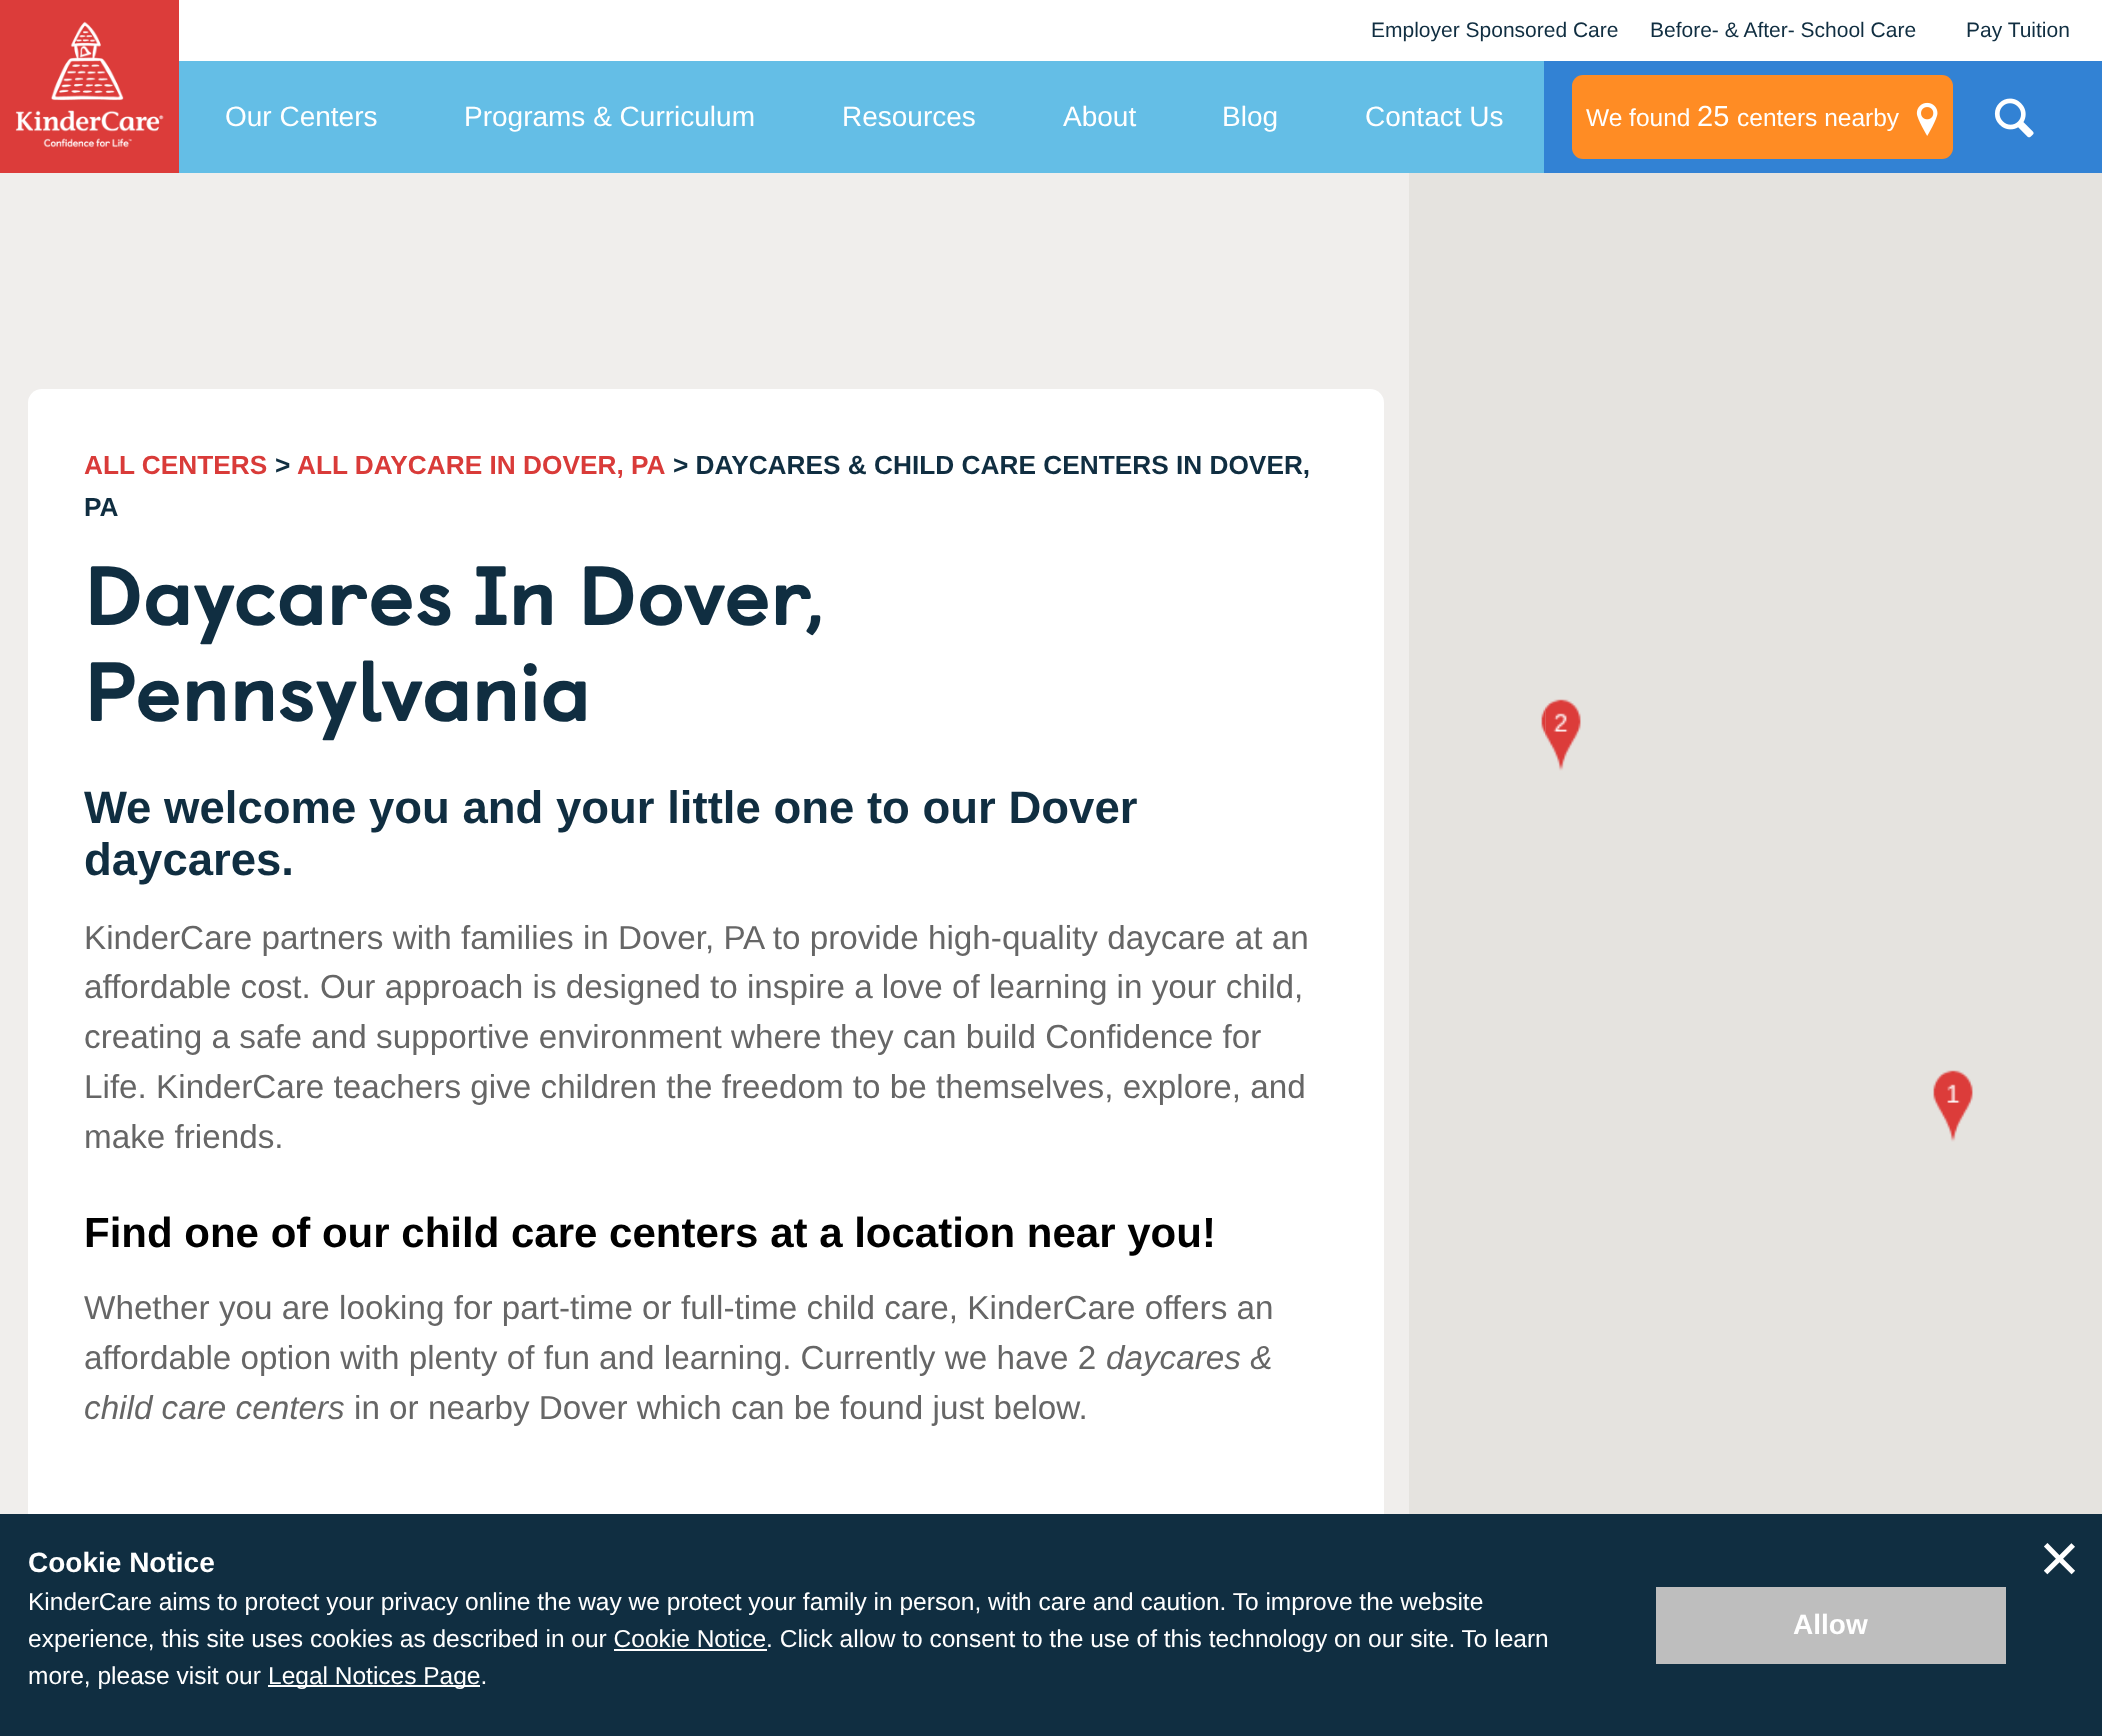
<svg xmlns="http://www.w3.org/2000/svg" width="2102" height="1736">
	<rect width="100%" height="100%" fill="#F0EEEC" />
	<rect x="179" y="61" width="1365" height="112" fill="#64BEE6" />
	<rect x="0" y="0" width="179" height="173" fill="#DC3C3A" />
	<image x="15" y="21" width="149" height="127" href="assets/img1.png" />
	<rect x="179" y="0" width="1923" height="61" fill="#FFFFFF" />
	<g font-family="Liberation Sans" font-size="21" fill="#102E41">
		<text x="1371" y="37">Employer Sponsored Care</text>
		<text x="1650" y="37">Before- &amp; After- School Care</text>
		<text x="1966" y="37">Pay Tuition</text>
	</g>
	<g font-family="Liberation Sans" font-size="28" fill="#FFFFFF">
		<text x="225" y="126">Our Centers</text>
		<text x="464" y="126">Programs &amp; Curriculum</text>
		<text x="842" y="126">Resources</text>
		<text x="1063" y="126">About</text>
		<text x="1222" y="126">Blog</text>
		<text x="1365" y="126">Contact Us</text>
	</g>
	<rect x="1544" y="61" width="558" height="112" fill="#3282D4" />
	<rect x="1572" y="75" width="381" height="84" rx="11" fill="#FF8C24" />
	<text x="1586" y="126" font-family="Liberation Sans" font-size="24.5" fill="#FFFFFF">We found</text>
	<text x="1697" y="126" font-family="Liberation Sans" font-size="29" fill="#FFFFFF">25</text>
	<text x="1737" y="126" font-family="Liberation Sans" font-size="24.5" fill="#FFFFFF">centers nearby</text>
	<image x="1916" y="102" width="22" height="34" href="assets/img2.png" />
	<image x="1994" y="98" width="40" height="40" href="assets/img3.png" />
	<rect x="28" y="389" width="1356" height="1155" rx="14" fill="#FFFFFF" />
	<text x="84" y="474" font-family="Liberation Sans" font-size="26.25" font-weight="700" fill="#D93B39">ALL CENTERS</text>
	<text x="275" y="474" font-family="Liberation Sans" font-size="26.25" font-weight="700" fill="#102E41">&gt;</text>
	<text x="297" y="474" font-family="Liberation Sans" font-size="26.25" font-weight="700" fill="#D93B39">ALL DAYCARE IN DOVER, PA</text>
	<g font-family="Liberation Sans" font-size="26.25" font-weight="700" fill="#102E41">
		<text x="673" y="474">&gt; DAYCARES &amp; CHILD CARE CENTERS IN DOVER,</text>
		<text x="84" y="516">PA</text>
	</g>
	<g font-family="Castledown" font-size="84" font-weight="900" fill="#102E41">
		<text x="84" y="625">Daycares In Dover,</text>
		<text x="84" y="721">Pennsylvania</text>
	</g>
	<g font-family="Liberation Sans" font-size="45.5" font-weight="700" fill="#102E41">
		<text x="84" y="823">We welcome you and your little one to our Dover</text>
		<text x="84" y="875">daycares.</text>
	</g>
	<g font-family="Liberation Sans" font-size="33.25" fill="#666666">
		<text x="84" y="949">KinderCare partners with families in Dover, PA to provide high-quality daycare at an</text>
		<text x="84" y="998">affordable cost. Our approach is designed to inspire a love of learning in your child,</text>
		<text x="84" y="1048">creating a safe and supportive environment where they can build Confidence for</text>
		<text x="84" y="1098">Life. KinderCare teachers give children the freedom to be themselves, explore, and</text>
		<text x="84" y="1148">make friends.</text>
	</g>
	<text x="84" y="1247" font-family="Liberation Sans" font-size="42" font-weight="700" fill="#000000">Find one of our child care centers at a location near you!</text>
	<g font-family="Liberation Sans" font-size="33.25" fill="#666666">
		<text x="84" y="1319">Whether you are looking for part-time or full-time child care, KinderCare offers an</text>
		<text x="84" y="1369">affordable option with plenty of fun and learning. Currently we have 2</text>
	</g>
	<g font-family="Liberation Sans" font-size="33.25" font-style="italic" fill="#666666">
		<text x="1106" y="1369">daycares &amp;</text>
		<text x="84" y="1419">child care centers</text>
	</g>
	<text x="354" y="1419" font-family="Liberation Sans" font-size="33.25" fill="#666666">in or nearby Dover which can be found just below.</text>
	<rect x="1409" y="173" width="693" height="1341" fill="#E5E3DF" />
	<image x="1541" y="708" width="5" height="26" href="assets/img4.png" />
	<image x="1545" y="699" width="36" height="72" href="assets/img5.png" />
	<image x="1933" y="1070" width="40" height="72" href="assets/img6.png" />
	<rect x="0" y="1514" width="2102" height="222" fill="#102E41" />
	<text x="28" y="1572" font-family="Liberation Sans" font-size="28" font-weight="700" fill="#FFFFFF">Cookie Notice</text>
	<g font-family="Liberation Sans" font-size="24.5" fill="#FFFFFF">
		<text x="28" y="1610">KinderCare aims to protect your privacy online the way we protect your family in person, with care and caution. To improve the website</text>
		<text x="28" y="1647">experience, this site uses cookies as described in our Cookie Notice. Click allow to consent to the use of this technology on our site. To learn</text>
	</g>
	<rect x="614" y="1649" width="153" height="2" fill="#FFFFFF" />
	<text x="28" y="1684" font-family="Liberation Sans" font-size="24.5" fill="#FFFFFF">more, please visit our</text>
	<rect x="268" y="1685" width="212" height="2" fill="#FFFFFF" />
	<text x="268" y="1684" font-family="Liberation Sans" font-size="24.5" fill="#FFFFFF">Legal Notices Page.</text>
	<rect x="1656" y="1587" width="350" height="77" fill="#BEBEBE" />
	<text x="1793" y="1634" font-family="Liberation Sans" font-size="28" font-weight="700" fill="#FFFFFF">Allow</text>
	<text x="2039" y="1582" font-family="Liberation Sans" font-size="70" fill="#FFFFFF">×</text>
</svg>
